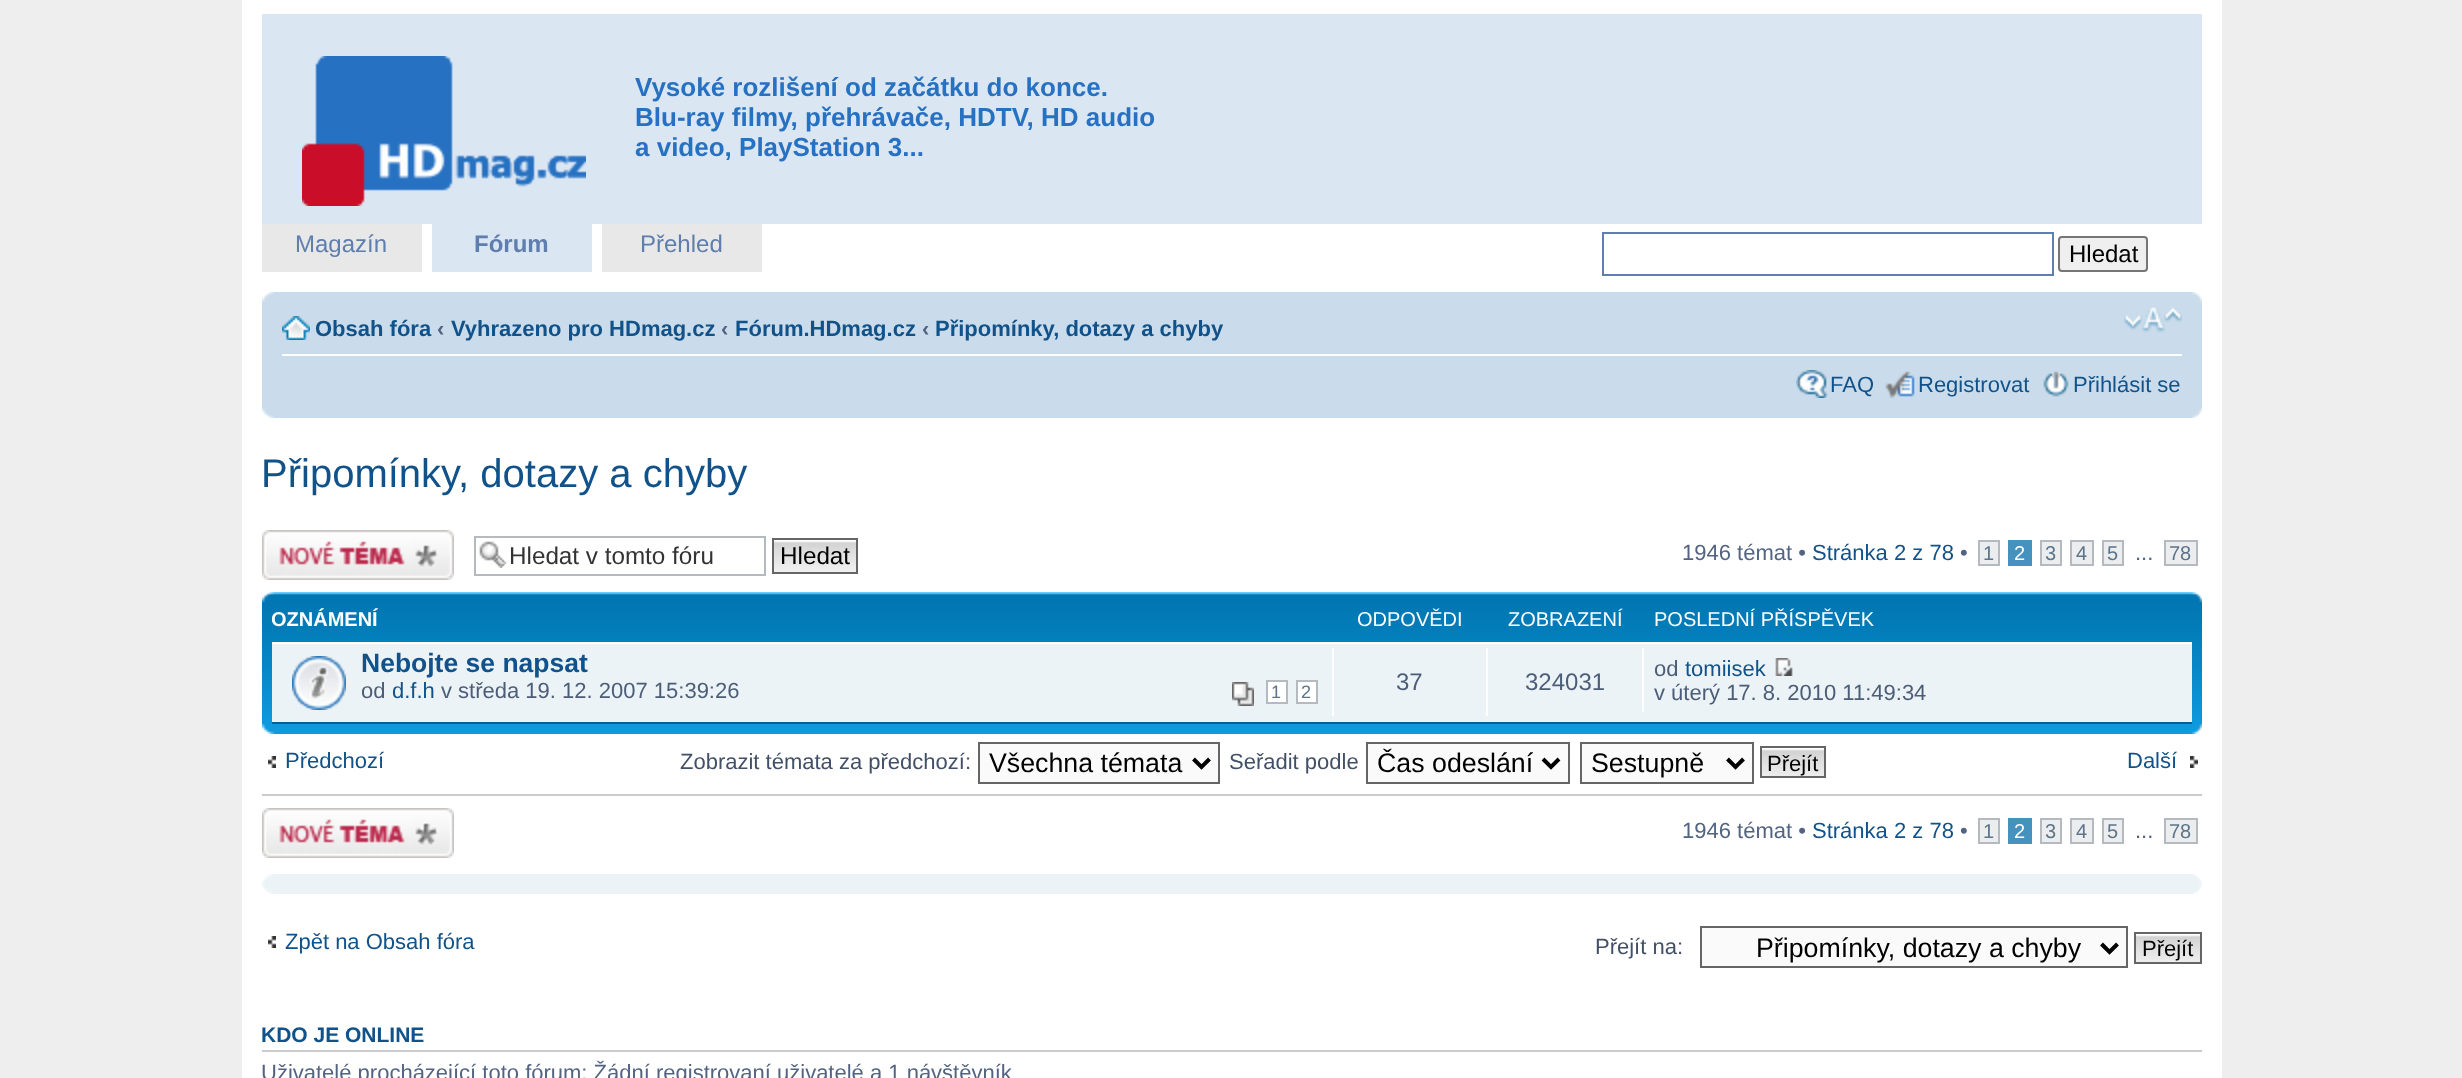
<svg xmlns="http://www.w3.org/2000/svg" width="2462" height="1078">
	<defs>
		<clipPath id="clip1"><rect x="272" y="602" width="1920" height="40" /></clipPath>
	</defs>
	<rect width="100%" height="100%" fill="#EEEEEE" />
	<rect x="242" y="0" width="1980" height="1078" fill="#FFFFFF" />
	<rect x="262" y="14" width="1940" height="210" fill="#DBE6F3" />
	<image x="302" y="56" width="284" height="150" href="assets/img1.png" />
	<g font-family="Liberation Sans" font-size="26" font-weight="700" fill="#2771C2">
		<text x="635" y="96">Vysoké rozlišení od začátku do konce.</text>
		<text x="635" y="126">Blu-ray filmy, přehrávače, HDTV, HD audio</text>
		<text x="635" y="156">a video, PlayStation 3...</text>
	</g>
	<rect x="262" y="224" width="160" height="48" fill="#E8E8E8" />
	<text x="295" y="252" font-family="Liberation Sans" font-size="24" fill="#5E7EAE">Magazín</text>
	<rect x="432" y="224" width="160" height="48" fill="#DBE6F3" />
	<text x="474" y="252" font-family="Liberation Sans" font-size="24" font-weight="700" fill="#5E7EAE">Fórum</text>
	<rect x="602" y="224" width="160" height="48" fill="#E8E8E8" />
	<text x="640" y="252" font-family="Liberation Sans" font-size="24" fill="#5E7EAE">Přehled</text>
	<rect x="1603" y="233" width="450" height="42" fill="none" stroke="#5E7EAE" stroke-width="2" />
	<rect x="2059" y="237" width="88" height="34" rx="3" fill="#EFEFEF" stroke="#767676" stroke-width="2" />
	<text x="2069" y="262" font-family="Liberation Sans" font-size="24" fill="#000000">Hledat</text>
	<rect x="262" y="292" width="1940" height="126" fill="#CADCEB" />
	<image x="262" y="292" width="12" height="10" href="assets/img2.png" />
	<image x="2191" y="292" width="11" height="10" href="assets/img3.png" />
	<rect x="282" y="354" width="1900" height="2" fill="#FFFFFF" />
	<image x="282" y="316" width="28" height="24" href="assets/img4.png" />
	<text x="315" y="336" font-family="Liberation Sans" font-size="22" font-weight="700" fill="#105289">Obsah fóra</text>
	<text x="437" y="336" font-family="Liberation Sans" font-size="22" font-weight="700" fill="#536482">‹</text>
	<text x="451" y="336" font-family="Liberation Sans" font-size="22" font-weight="700" fill="#105289">Vyhrazeno pro HDmag.cz</text>
	<text x="721" y="336" font-family="Liberation Sans" font-size="22" font-weight="700" fill="#536482">‹</text>
	<text x="735" y="336" font-family="Liberation Sans" font-size="22" font-weight="700" fill="#105289">Fórum.HDmag.cz</text>
	<text x="922" y="336" font-family="Liberation Sans" font-size="22" font-weight="700" fill="#536482">‹</text>
	<text x="935" y="336" font-family="Liberation Sans" font-size="22" font-weight="700" fill="#105289">Připomínky, dotazy a chyby</text>
	<image x="2124" y="307" width="58" height="26" href="assets/img5.png" />
	<image x="1796" y="370" width="32" height="28" href="assets/img6.png" />
	<text x="1830" y="392" font-family="Liberation Sans" font-size="22" fill="#105289">FAQ</text>
	<image x="1885" y="371" width="30" height="27" href="assets/img7.png" />
	<text x="1918" y="392" font-family="Liberation Sans" font-size="22" fill="#105289">Registrovat</text>
	<image x="2043" y="371" width="26" height="26" href="assets/img8.png" />
	<text x="2073" y="392" font-family="Liberation Sans" font-size="22" fill="#105289">Přihlásit se</text>
	<image x="262" y="408" width="12" height="10" href="assets/img9.png" />
	<image x="2192" y="408" width="10" height="10" href="assets/img10.png" />
	<text x="261" y="487" font-family="Liberation Sans" font-size="40" fill="#105289">Připomínky, dotazy a chyby</text>
	<image x="262" y="530" width="192" height="50" href="assets/img11.png" />
	<image x="479" y="541" width="28" height="27" href="assets/img12.png" />
	<rect x="475" y="537" width="290" height="38" fill="none" stroke="#B4BAC0" stroke-width="2" />
	<text x="509" y="564" font-family="Liberation Sans" font-size="24.25" fill="#333333">Hledat v tomto fóru</text>
	<image x="774" y="540" width="82" height="32" href="assets/img13.png" />
	<rect x="773" y="539" width="84" height="34" fill="none" stroke="#666666" stroke-width="2" />
	<text x="780" y="564" font-family="Liberation Sans" font-size="24.25" fill="#000000">Hledat</text>
	<text x="1682" y="560" font-family="Liberation Sans" font-size="22" fill="#536482">1946 témat •</text>
	<text x="1812" y="560" font-family="Liberation Sans" font-size="22" fill="#105289">Stránka 2 z 78</text>
	<text x="1960" y="560" font-family="Liberation Sans" font-size="22" fill="#536482">•</text>
	<rect x="1979" y="541" width="20" height="24" fill="#ECEDEE" stroke="#B4BAC0" stroke-width="2" />
	<text x="1983" y="560" font-family="Liberation Sans" font-size="20" fill="#5C758C">1</text>
	<rect x="2008" y="540" width="24" height="26" fill="#4692BF" />
	<text x="2014" y="560" font-family="Liberation Sans" font-size="20" fill="#FFFFFF">2</text>
	<rect x="2041" y="541" width="20" height="24" fill="#ECEDEE" stroke="#B4BAC0" stroke-width="2" />
	<text x="2045" y="560" font-family="Liberation Sans" font-size="20" fill="#5C758C">3</text>
	<rect x="2071" y="541" width="22" height="24" fill="#ECEDEE" stroke="#B4BAC0" stroke-width="2" />
	<text x="2076" y="560" font-family="Liberation Sans" font-size="20" fill="#5C758C">4</text>
	<rect x="2103" y="541" width="20" height="24" fill="#ECEDEE" stroke="#B4BAC0" stroke-width="2" />
	<text x="2107" y="560" font-family="Liberation Sans" font-size="20" fill="#5C758C">5</text>
	<rect x="2165" y="541" width="32" height="24" fill="#ECEDEE" stroke="#B4BAC0" stroke-width="2" />
	<text x="2169" y="560" font-family="Liberation Sans" font-size="20" fill="#5C758C">78</text>
	<text x="2135" y="560" font-family="Liberation Sans" font-size="22" fill="#536482">...</text>
	<image x="262" y="592" width="1940" height="142" href="assets/img14.png" />
	<image x="262" y="592" width="13" height="10" href="assets/img15.png" />
	<image x="2191" y="592" width="11" height="10" href="assets/img16.png" />
	<g clip-path="url(#clip1)">
		<text x="271" y="626" font-family="Liberation Sans" font-size="20" font-weight="700" fill="#FFFFFF">OZNÁMENÍ</text>
	</g>
	<g font-family="Liberation Sans" font-size="20" fill="#FFFFFF">
		<text x="1357" y="626">ODPOVĚDI</text>
		<text x="1508" y="626">ZOBRAZENÍ</text>
		<text x="1654" y="626">POSLEDNÍ PŘÍSPĚVEK</text>
	</g>
	<rect x="272" y="644" width="1920" height="78" fill="#ECF3F7" />
	<rect x="272" y="642" width="1920" height="2" fill="#FFFFFF" />
	<rect x="272" y="722" width="1920" height="2" fill="#00608F" />
	<image x="292" y="656" width="54" height="54" href="assets/img17.png" />
	<text x="361" y="672" font-family="Liberation Sans" font-size="26.5" font-weight="700" fill="#105289">Nebojte se napsat</text>
	<text x="361" y="698" font-family="Liberation Sans" font-size="22" fill="#4C5D77">od</text>
	<text x="392" y="698" font-family="Liberation Sans" font-size="22" fill="#105289">d.f.h</text>
	<text x="441" y="698" font-family="Liberation Sans" font-size="22" fill="#4C5D77">v středa 19. 12. 2007 15:39:26</text>
	<image x="1232" y="682" width="22" height="24" href="assets/img18.png" />
	<rect x="1267" y="681" width="20" height="22" fill="#FFFFFF" stroke="#B4BAC0" stroke-width="2" />
	<text x="1271" y="698" font-family="Liberation Sans" font-size="18" fill="#5C758C">1</text>
	<rect x="1297" y="681" width="20" height="22" fill="#FFFFFF" stroke="#B4BAC0" stroke-width="2" />
	<text x="1301" y="698" font-family="Liberation Sans" font-size="18" fill="#5C758C">2</text>
	<rect x="1332" y="648" width="2" height="68" fill="#FFFFFF" />
	<text x="1396" y="690" font-family="Liberation Sans" font-size="24" fill="#4C5D77">37</text>
	<rect x="1486" y="648" width="2" height="68" fill="#FFFFFF" />
	<text x="1525" y="690" font-family="Liberation Sans" font-size="24" fill="#4C5D77">324031</text>
	<rect x="1642" y="648" width="2" height="64" fill="#FFFFFF" />
	<text x="1654" y="676" font-family="Liberation Sans" font-size="22" fill="#4C5D77">od</text>
	<text x="1685" y="676" font-family="Liberation Sans" font-size="22" fill="#105289">tomiisek</text>
	<image x="1775" y="658" width="18" height="18" href="assets/img19.png" />
	<text x="1654" y="700" font-family="Liberation Sans" font-size="22" fill="#4C5D77">v úterý 17. 8. 2010 11:49:34</text>
	<image x="262" y="724" width="13" height="10" href="assets/img20.png" />
	<image x="2191" y="724" width="11" height="10" href="assets/img21.png" />
	<image x="268" y="756" width="8" height="12" href="assets/img22.png" />
	<text x="285" y="768" font-family="Liberation Sans" font-size="22" fill="#105289">Předchozí</text>
	<text x="680" y="769" font-family="Liberation Sans" font-size="22" fill="#425067">Zobrazit témata za předchozí:</text>
	<rect x="979" y="743" width="240" height="40" fill="#FAFAFA" stroke="#666666" stroke-width="2" />
	<path d="M1193.5 759L1201.5 767L1209.5 759" fill="none" stroke="#000000" stroke-width="4" />
	<text x="989" y="772" font-family="Liberation Sans" font-size="26.75" fill="#000000">Všechna témata</text>
	<text x="1229" y="769" font-family="Liberation Sans" font-size="22" fill="#425067">Seřadit podle</text>
	<rect x="1367" y="743" width="202" height="40" fill="#FAFAFA" stroke="#666666" stroke-width="2" />
	<path d="M1543 759L1551 767L1559 759" fill="none" stroke="#000000" stroke-width="4" />
	<text x="1377" y="772" font-family="Liberation Sans" font-size="26.75" fill="#000000">Čas odeslání</text>
	<rect x="1581" y="743" width="172" height="40" fill="#FAFAFA" stroke="#666666" stroke-width="2" />
	<path d="M1727.5 759L1735.5 767L1743.5 759" fill="none" stroke="#000000" stroke-width="4" />
	<text x="1591" y="772" font-family="Liberation Sans" font-size="26.75" fill="#000000">Sestupně</text>
	<image x="1762" y="748" width="62" height="28" href="assets/img23.png" />
	<rect x="1761" y="747" width="64" height="30" fill="none" stroke="#666666" stroke-width="2" />
	<text x="1767" y="771" font-family="Liberation Sans" font-size="22" fill="#000000">Přejít</text>
	<image x="2190" y="756" width="8" height="12" href="assets/img24.png" />
	<text x="2127" y="768" font-family="Liberation Sans" font-size="22" fill="#105289">Další</text>
	<rect x="262" y="794" width="1940" height="2" fill="#CCCCCC" />
	<image x="262" y="808" width="192" height="50" href="assets/img11.png" />
	<text x="1682" y="838" font-family="Liberation Sans" font-size="22" fill="#536482">1946 témat •</text>
	<text x="1812" y="838" font-family="Liberation Sans" font-size="22" fill="#105289">Stránka 2 z 78</text>
	<text x="1960" y="838" font-family="Liberation Sans" font-size="22" fill="#536482">•</text>
	<rect x="1979" y="819" width="20" height="24" fill="#ECEDEE" stroke="#B4BAC0" stroke-width="2" />
	<text x="1983" y="838" font-family="Liberation Sans" font-size="20" fill="#5C758C">1</text>
	<rect x="2008" y="818" width="24" height="26" fill="#4692BF" />
	<text x="2014" y="838" font-family="Liberation Sans" font-size="20" fill="#FFFFFF">2</text>
	<rect x="2041" y="819" width="20" height="24" fill="#ECEDEE" stroke="#B4BAC0" stroke-width="2" />
	<text x="2045" y="838" font-family="Liberation Sans" font-size="20" fill="#5C758C">3</text>
	<rect x="2071" y="819" width="22" height="24" fill="#ECEDEE" stroke="#B4BAC0" stroke-width="2" />
	<text x="2076" y="838" font-family="Liberation Sans" font-size="20" fill="#5C758C">4</text>
	<rect x="2103" y="819" width="20" height="24" fill="#ECEDEE" stroke="#B4BAC0" stroke-width="2" />
	<text x="2107" y="838" font-family="Liberation Sans" font-size="20" fill="#5C758C">5</text>
	<rect x="2165" y="819" width="32" height="24" fill="#ECEDEE" stroke="#B4BAC0" stroke-width="2" />
	<text x="2169" y="838" font-family="Liberation Sans" font-size="20" fill="#5C758C">78</text>
	<text x="2135" y="838" font-family="Liberation Sans" font-size="22" fill="#536482">...</text>
	<rect x="262" y="874" width="1940" height="20" fill="#ECF3F7" />
	<image x="262" y="874" width="11" height="10" href="assets/img25.png" />
	<image x="2193" y="874" width="9" height="10" href="assets/img26.png" />
	<image x="262" y="884" width="11" height="10" href="assets/img27.png" />
	<image x="2193" y="884" width="9" height="10" href="assets/img28.png" />
	<image x="268" y="936" width="8" height="12" href="assets/img22.png" />
	<text x="285" y="949" font-family="Liberation Sans" font-size="22" fill="#105289">Zpět na Obsah fóra</text>
	<text x="1595" y="954" font-family="Liberation Sans" font-size="22" fill="#425067">Přejít na:</text>
	<rect x="1701" y="927" width="426" height="40" fill="#FAFAFA" stroke="#666666" stroke-width="2" />
	<path d="M2101.5 944L2109.5 952L2117.5 944" fill="none" stroke="#000000" stroke-width="4" />
	<text x="1756" y="957" font-family="Liberation Sans" font-size="26.75" fill="#000000">Připomínky, dotazy a chyby</text>
	<image x="2136" y="934" width="64" height="28" href="assets/img29.png" />
	<rect x="2135" y="933" width="66" height="30" fill="none" stroke="#666666" stroke-width="2" />
	<text x="2142" y="956" font-family="Liberation Sans" font-size="22" fill="#000000">Přejít</text>
	<rect x="262" y="1050" width="1940" height="2" fill="#CCCCCC" />
	<text x="261" y="1042" font-family="Liberation Sans" font-size="21" font-weight="700" fill="#105289">KDO JE ONLINE</text>
	<text x="261" y="1080" font-family="Liberation Sans" font-size="22" fill="#536482">Uživatelé procházející toto fórum: Žádní registrovaní uživatelé a 1 návštěvník</text>
</svg>
